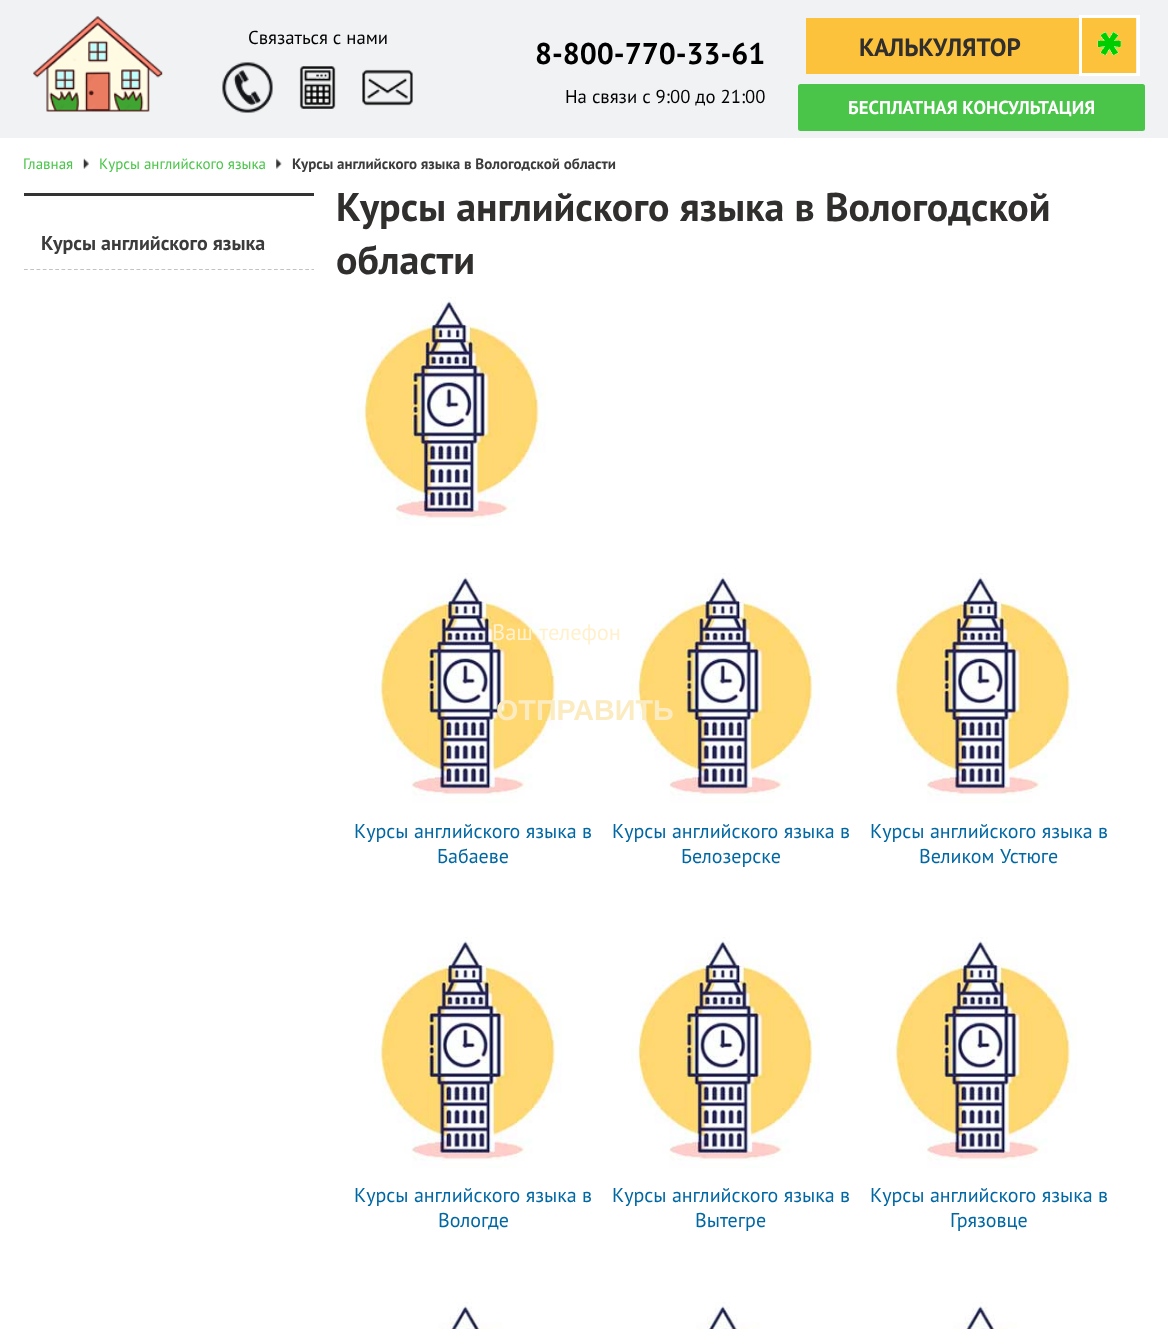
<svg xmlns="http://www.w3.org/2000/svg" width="1168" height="1329">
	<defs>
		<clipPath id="clip1"><rect x="24" y="195" width="290" height="75" /></clipPath>
	</defs>
	<rect width="100%" height="100%" fill="#FFFFFF" />
	<rect x="0" y="0" width="1168" height="138" fill="#F1F2F4" />
	<image x="33" y="16" width="130" height="96" href="assets/img1.png" />
	<text x="248" y="44" font-family="PT Sans" font-size="18.75" fill="#000000">Связаться с нами</text>
	<image x="222" y="62" width="51" height="51" href="assets/img2.png" />
	<image x="299" y="66" width="37" height="43" href="assets/img3.png" />
	<image x="362" y="69" width="51" height="37" href="assets/img4.png" />
	<text x="535" y="64" font-family="PT Sans" font-size="30" font-weight="700" fill="#000000">8-800-770-33-61</text>
	<text x="565" y="103" font-family="PT Sans" font-size="18.75" fill="#000000">На связи с 9:00 до 21:00</text>
	<rect x="806" y="18" width="330" height="56" fill="#FDC23C" />
	<text x="859" y="56" font-family="PT Sans" font-size="25" font-weight="700" fill="#312E2E">КАЛЬКУЛЯТОР</text>
	<rect x="1080.5" y="16.5" width="58" height="58" fill="none" stroke="#FFFFFF" stroke-width="3" />
	<image x="1097" y="32" width="24" height="23" href="assets/img5.png" />
	<rect x="799.5" y="85.5" width="344" height="44" rx="1" fill="#4AC54A" stroke="#4AC54A" stroke-width="3" />
	<text x="848" y="114" font-family="PT Sans" font-size="18.75" font-weight="700" fill="#FFFFFF">БЕСПЛАТНАЯ КОНСУЛЬТАЦИЯ</text>
	<text x="23" y="169" font-family="PT Sans" font-size="15" fill="#4AC54A">Главная</text>
	<image x="83" y="158" width="6" height="11" href="assets/img6.png" />
	<text x="99" y="169" font-family="PT Sans" font-size="15" fill="#4AC54A">Курсы английского языка</text>
	<image x="276" y="158" width="6" height="11" href="assets/img7.png" />
	<text x="292" y="169" font-family="PT Sans" font-size="15" font-weight="700" fill="#3C3C3C">Курсы английского языка в Вологодской области</text>
	<rect x="24" y="193" width="290" height="3" fill="#333333" />
	<g clip-path="url(#clip1)">
		<path d="M24 269.5H334" fill="none" stroke="#C2C2C2" stroke-width="1.2" stroke-dasharray="3.75 2.5" />
	</g>
	<text x="41" y="250" font-family="PT Sans" font-size="20" font-weight="700" fill="#3C3C3C">Курсы английского языка</text>
	<g font-family="PT Sans" font-size="40" font-weight="700" fill="#312E2E">
		<text x="336" y="221">Курсы английского языка в Вологодской</text>
		<text x="336" y="274">области</text>
	</g>
	<image x="357" y="297" width="189" height="229" href="assets/img8.png" />
	<image x="374" y="573" width="188" height="230" href="assets/img9.png" />
	<g font-family="PT Sans" font-size="20" fill="#0067A3">
		<text x="354" y="838">Курсы английского языка в</text>
		<text x="437" y="863">Бабаеве</text>
	</g>
	<image x="631" y="573" width="189" height="230" href="assets/img10.png" />
	<g font-family="PT Sans" font-size="20" fill="#0067A3">
		<text x="612" y="838">Курсы английского языка в</text>
		<text x="681" y="863">Белозерске</text>
	</g>
	<image x="889" y="573" width="188" height="230" href="assets/img9.png" />
	<g font-family="PT Sans" font-size="20" fill="#0067A3">
		<text x="870" y="838">Курсы английского языка в</text>
		<text x="919" y="863" word-spacing="1">Великом Устюге</text>
	</g>
	<image x="374" y="937" width="188" height="231" href="assets/img11.png" />
	<g font-family="PT Sans" font-size="20" fill="#0067A3">
		<text x="354" y="1202">Курсы английского языка в</text>
		<text x="438" y="1227">Вологде</text>
	</g>
	<image x="631" y="937" width="189" height="231" href="assets/img12.png" />
	<g font-family="PT Sans" font-size="20" fill="#0067A3">
		<text x="612" y="1202">Курсы английского языка в</text>
		<text x="695" y="1227">Вытегре</text>
	</g>
	<image x="889" y="937" width="188" height="231" href="assets/img11.png" />
	<g font-family="PT Sans" font-size="20" fill="#0067A3">
		<text x="870" y="1202">Курсы английского языка в</text>
		<text x="950" y="1227">Грязовце</text>
	</g>
	<image x="438" y="1302" width="64" height="27" href="assets/img13.png" />
	<image x="696" y="1302" width="64" height="27" href="assets/img14.png" />
	<image x="953" y="1302" width="64" height="27" href="assets/img13.png" />
	<text x="492" y="640" word-spacing="1" font-family="PT Sans" font-size="22.5" fill="#FFF1CE">Ваш телефон</text>
	<text x="496" y="720" font-family="Liberation Sans" font-size="28.75" font-weight="700" fill="#FBEBC1">ОТПРАВИТЬ</text>
</svg>
